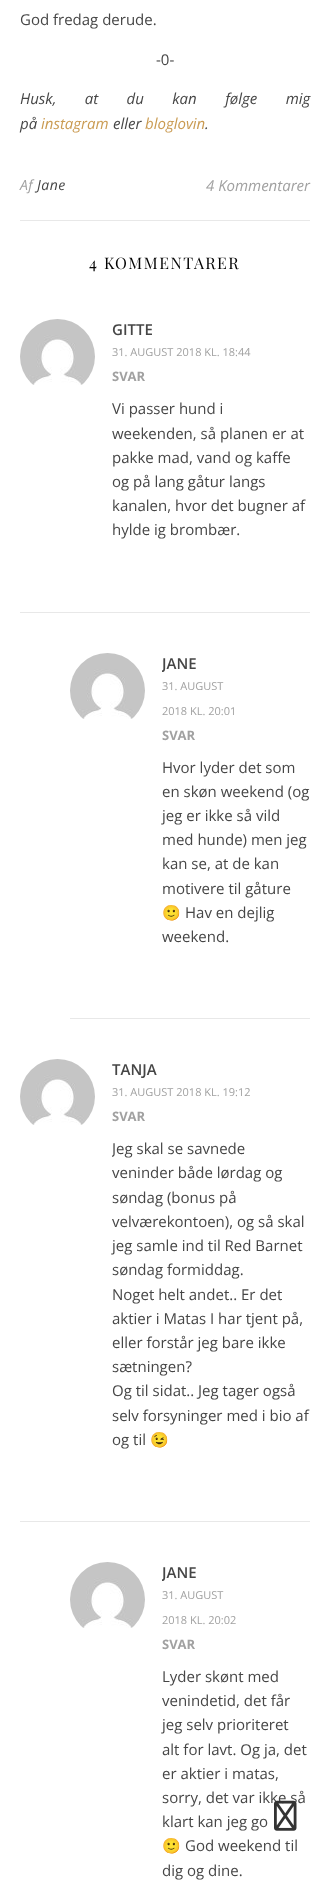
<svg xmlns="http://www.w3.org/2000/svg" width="330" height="1891">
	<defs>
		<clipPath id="clip1"><rect x="162" y="653" width="148" height="310" /></clipPath>
		<clipPath id="clip2"><rect x="112" y="1059" width="198" height="407" /></clipPath>
		<clipPath id="clip3"><rect x="162" y="1562" width="148" height="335" /></clipPath>
	</defs>
	<rect width="100%" height="100%" fill="#FFFFFF" />
	<g font-family="Open Sans" font-size="15" fill="#464646">
		<text x="20" y="25">God fredag derude.</text>
		<text x="156" y="65">-0-</text>
	</g>
	<g font-family="Open Sans" font-size="15" font-style="italic" fill="#464646">
		<text x="20" y="104" word-spacing="24.5">Husk, at du kan følge mig</text>
		<text x="20" y="129">på</text>
	</g>
	<text x="41" y="129" font-family="Open Sans" font-size="15" font-style="italic" fill="#CA9B52">instagram</text>
	<text x="113" y="129" font-family="Open Sans" font-size="15" font-style="italic" fill="#464646">eller</text>
	<text x="145" y="129" font-family="Open Sans" font-size="15" font-style="italic" fill="#CA9B52">bloglovin</text>
	<text x="205" y="129" font-family="Open Sans" font-size="15" font-style="italic" fill="#464646">.</text>
	<rect x="20" y="220" width="290" height="1" fill="#E8E8E8" />
	<text x="20" y="190" font-family="Open Sans" font-size="14" font-style="italic" letter-spacing="0.5" fill="#A1A1A1">Af</text>
	<text x="37" y="190" font-family="Open Sans" font-size="14" font-style="italic" letter-spacing="0.5" fill="#464646">Jane</text>
	<text x="206" y="191" font-family="Open Sans" font-size="15" font-style="italic" fill="#A1A1A1">4 Kommentarer</text>
	<text x="89" y="269" font-family="Playfair Display" font-size="16" letter-spacing="1.5" fill="#030303">4 KOMMENTARER</text>
	<rect x="20" y="612" width="290" height="1" fill="#E8E8E8" />
	<image x="20" y="319" width="75" height="66" href="assets/img1.png" />
	<text x="112" y="335" font-family="Open Sans" font-size="15" font-weight="600" fill="#464646">GITTE</text>
	<text x="112" y="356" font-family="Open Sans" font-size="11" fill="#A1A1A1">31. AUGUST 2018 KL. 18:44</text>
	<text x="112" y="381" font-family="Open Sans" font-size="13" font-weight="700" fill="#A1A1A1">SVAR</text>
	<g font-family="Open Sans" font-size="15" fill="#464646">
		<text x="112" y="414">Vi passer hund i</text>
		<text x="112" y="439">weekenden, så planen er at</text>
		<text x="112" y="463">pakke mad, vand og kaffe</text>
		<text x="112" y="487">og på lang gåtur langs</text>
		<text x="112" y="511">kanalen, hvor det bugner af</text>
		<text x="112" y="535">hylde ig brombær.</text>
	</g>
	<rect x="70" y="1018" width="240" height="1" fill="#E8E8E8" />
	<image x="70" y="653" width="75" height="66" href="assets/img1.png" />
	<g clip-path="url(#clip1)">
		<text x="162" y="669" font-family="Open Sans" font-size="15" font-weight="600" fill="#464646">JANE</text>
	</g>
	<g font-family="Open Sans" font-size="11" fill="#A1A1A1">
		<text x="162" y="690">31. AUGUST</text>
		<text x="162" y="715">2018 KL. 20:01</text>
	</g>
	<text x="162" y="740" font-family="Open Sans" font-size="13" font-weight="700" fill="#A1A1A1">SVAR</text>
	<g font-family="Open Sans" font-size="15" fill="#464646">
		<text x="162" y="773">Hvor lyder det som</text>
		<text x="162" y="797">en skøn weekend (og</text>
		<text x="162" y="821">jeg er ikke så vild</text>
		<text x="162" y="845">med hunde) men jeg</text>
		<text x="162" y="869">kan se, at de kan</text>
		<text x="162" y="894">motivere til gåture</text>
	</g>
	<text x="162" y="918" font-family="Noto Color Emoji" font-size="15" fill="#464646">🙂</text>
	<g font-family="Open Sans" font-size="15" fill="#464646">
		<text x="185" y="918">Hav en dejlig</text>
		<text x="162" y="942">weekend.</text>
	</g>
	<rect x="20" y="1521" width="290" height="1" fill="#E8E8E8" />
	<image x="20" y="1059" width="75" height="66" href="assets/img1.png" />
	<text x="112" y="1075" font-family="Open Sans" font-size="15" font-weight="600" fill="#464646">TANJA</text>
	<text x="112" y="1096" font-family="Open Sans" font-size="11" fill="#A1A1A1">31. AUGUST 2018 KL. 19:12</text>
	<text x="112" y="1121" font-family="Open Sans" font-size="13" font-weight="700" fill="#A1A1A1">SVAR</text>
	<g clip-path="url(#clip2)">
		<text x="112" y="1154" font-family="Open Sans" font-size="15" fill="#464646">Jeg skal se savnede</text>
	</g>
	<g font-family="Open Sans" font-size="15" fill="#464646">
		<text x="112" y="1178">veninder både lørdag og</text>
		<text x="112" y="1203">søndag (bonus på</text>
		<text x="112" y="1227">velværekontoen), og så skal</text>
		<text x="112" y="1251">jeg samle ind til Red Barnet</text>
		<text x="112" y="1275">søndag formiddag.</text>
		<text x="112" y="1300">Noget helt andet.. Er det</text>
		<text x="112" y="1324">aktier i Matas I har tjent på,</text>
		<text x="112" y="1348">eller forstår jeg bare ikke</text>
		<text x="112" y="1372">sætningen?</text>
		<text x="112" y="1396">Og til sidat.. Jeg tager også</text>
		<text x="112" y="1421">selv forsyninger med i bio af</text>
		<text x="112" y="1445">og til</text>
	</g>
	<text x="150" y="1445" font-family="Noto Color Emoji" font-size="15" fill="#464646">😉</text>
	<image x="70" y="1562" width="75" height="66" href="assets/img1.png" />
	<g clip-path="url(#clip3)">
		<text x="162" y="1578" font-family="Open Sans" font-size="15" font-weight="600" fill="#464646">JANE</text>
	</g>
	<g font-family="Open Sans" font-size="11" fill="#A1A1A1">
		<text x="162" y="1599">31. AUGUST</text>
		<text x="162" y="1624">2018 KL. 20:02</text>
	</g>
	<text x="162" y="1649" font-family="Open Sans" font-size="13" font-weight="700" fill="#A1A1A1">SVAR</text>
	<g font-family="Open Sans" font-size="15" fill="#464646">
		<text x="162" y="1682">Lyder skønt med</text>
		<text x="162" y="1706">venindetid, det får</text>
		<text x="162" y="1730">jeg selv prioriteret</text>
		<text x="162" y="1755">alt for lavt. Og ja, det</text>
		<text x="162" y="1779">er aktier i matas,</text>
		<text x="162" y="1803">sorry, det var ikke så</text>
		<text x="162" y="1827">klart kan jeg go</text>
	</g>
	<text x="162" y="1851" font-family="Noto Color Emoji" font-size="15" fill="#464646">🙂</text>
	<g font-family="Open Sans" font-size="15" fill="#464646">
		<text x="185" y="1851">God weekend til</text>
		<text x="162" y="1876">dig og dine.</text>
	</g>
	<image x="274" y="1800" width="23" height="31" href="assets/img2.png" />
</svg>
